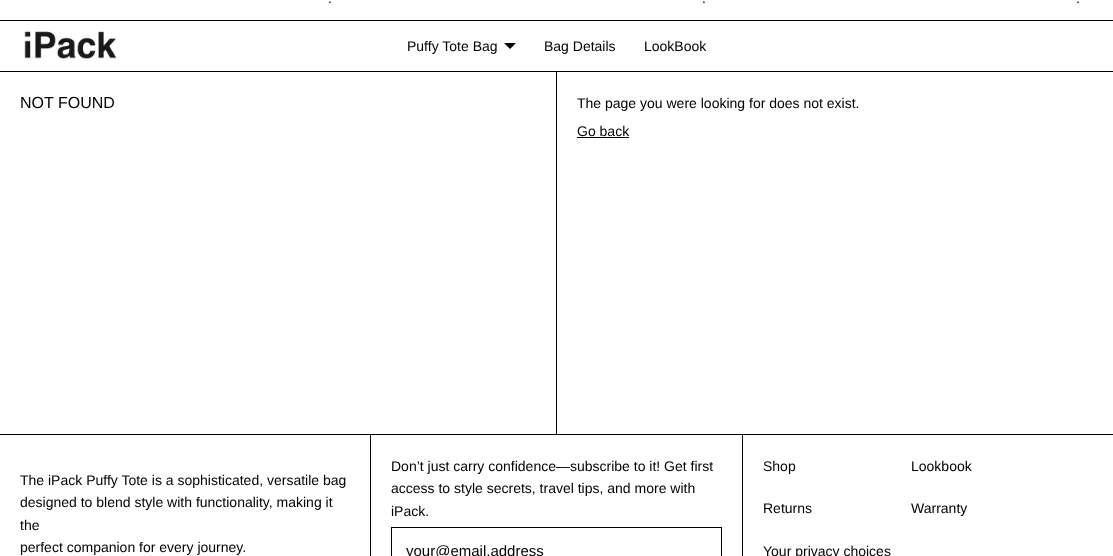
<svg xmlns="http://www.w3.org/2000/svg" width="1113" height="556">
	<rect width="100%" height="100%" fill="#FFFFFF" />
	<rect x="0" y="20" width="1113" height="1" fill="#000000" />
	<g font-family="Liberation Sans" font-size="14" fill="#000000">
		<text x="328" y="3">.</text>
		<text x="702" y="3">.</text>
		<text x="1076" y="3">.</text>
	</g>
	<rect x="0" y="71" width="1113" height="1" fill="#000000" />
	<image x="24" y="31" width="93" height="29" href="assets/img1.png" />
	<text x="407" y="51" font-family="Liberation Sans" font-size="14" fill="#000000">Puffy Tote Bag</text>
	<path d="M504 43H516L510 49Z" fill="#000001" />
	<g font-family="Liberation Sans" font-size="14" fill="#000000">
		<text x="544" y="51">Bag Details</text>
		<text x="644" y="51">LookBook</text>
	</g>
	<rect x="556" y="72" width="1" height="362" fill="#000000" />
	<text x="20" y="108" font-family="Liberation Sans" font-size="16" fill="#000000">NOT FOUND</text>
	<g font-family="Liberation Sans" font-size="14" fill="#000000">
		<text x="577" y="108">The page you were looking for does not exist.</text>
		<text x="577" y="136">Go back</text>
	</g>
	<rect x="577" y="137" width="52" height="1" fill="#000001" />
	<rect x="-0.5" y="434.5" width="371" height="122" fill="none" stroke="#000000" />
	<g font-family="Liberation Sans" font-size="14" fill="#000000">
		<text x="20" y="485">The iPack Puffy Tote is a sophisticated, versatile bag</text>
		<text x="20" y="507">designed to blend style with functionality, making it</text>
		<text x="20" y="530">the</text>
		<text x="20" y="552">perfect companion for every journey.</text>
	</g>
	<rect x="391.5" y="527.5" width="330" height="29" fill="none" stroke="#000000" />
	<rect x="370.5" y="434.5" width="372" height="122" fill="none" stroke="#000000" />
	<g font-family="Liberation Sans" font-size="14" fill="#000000">
		<text x="391" y="471">Don’t just carry confidence—subscribe to it! Get first</text>
		<text x="391" y="493">access to style secrets, travel tips, and more with</text>
		<text x="391" y="516">iPack.</text>
	</g>
	<text x="406" y="556" font-family="Liberation Sans" font-size="15" fill="#000000">your@email.address</text>
	<rect x="742.5" y="434.5" width="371" height="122" fill="none" stroke="#000000" />
	<g font-family="Liberation Sans" font-size="14" fill="#000000">
		<text x="763" y="471">Shop</text>
		<text x="911" y="471">Lookbook</text>
		<text x="763" y="513">Returns</text>
		<text x="911" y="513">Warranty</text>
		<text x="763" y="556">Your privacy choices</text>
	</g>
</svg>
